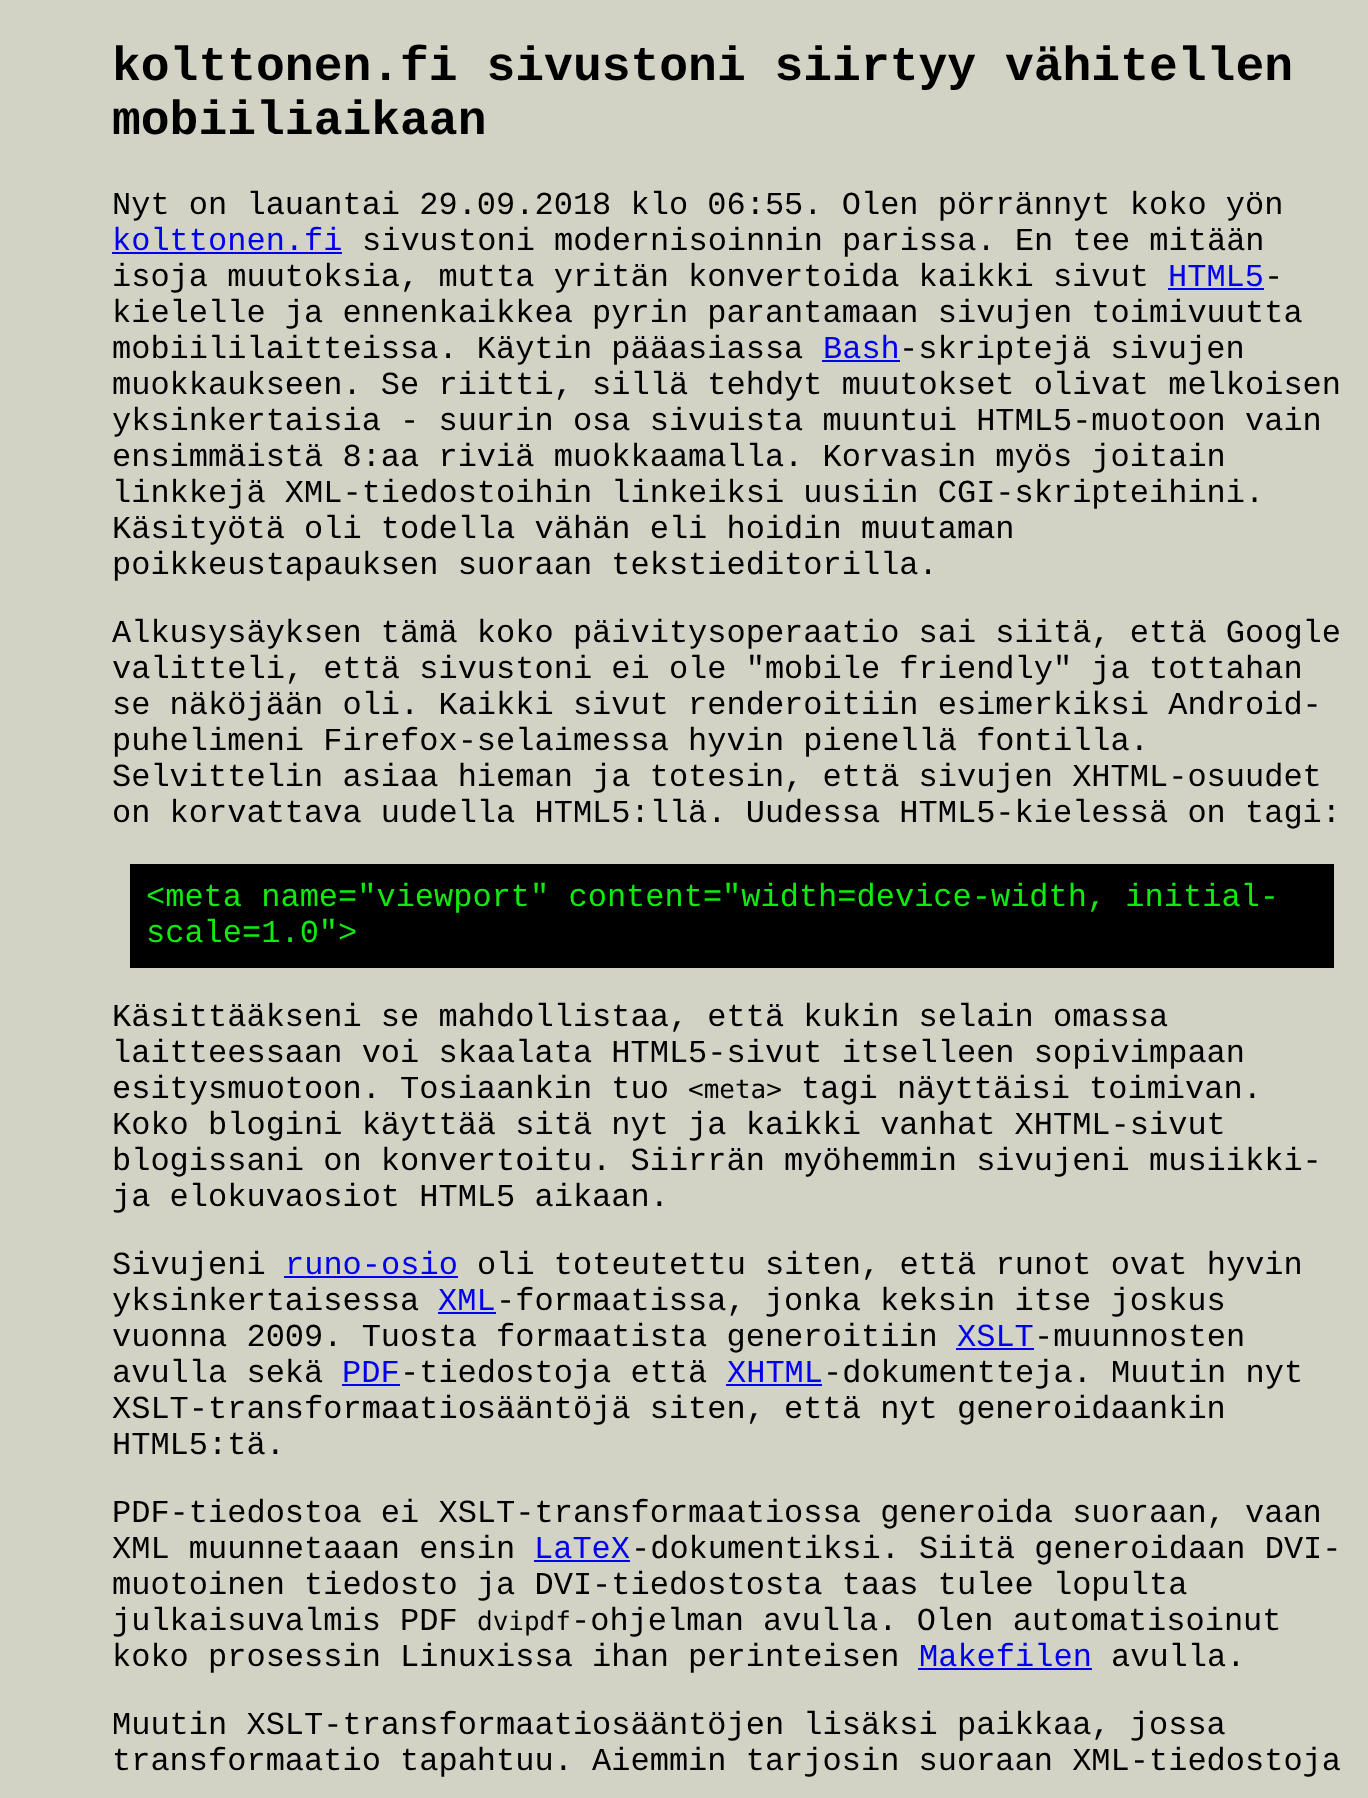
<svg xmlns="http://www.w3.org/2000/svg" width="1368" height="1798">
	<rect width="100%" height="100%" fill="#D2D2C5" />
	<g font-family="Liberation Mono" font-size="48" font-weight="700" fill="#000000">
		<text x="112" y="80">kolttonen.fi sivustoni siirtyy vähitellen</text>
		<text x="112" y="134">mobiiliaikaan</text>
	</g>
	<text x="112" y="214" font-family="Liberation Mono" font-size="32" fill="#000000">Nyt on lauantai 29.09.2018 klo 06:55. Olen pörrännyt koko yön</text>
	<text x="112" y="250" font-family="Liberation Mono" font-size="32" fill="#0000EE">kolttonen.fi</text>
	<rect x="112" y="252" width="230" height="2" fill="#0000EE" />
	<g font-family="Liberation Mono" font-size="32" fill="#000000">
		<text x="362" y="250">sivustoni modernisoinnin parissa. En tee mitään</text>
		<text x="112" y="286">isoja muutoksia, mutta yritän konvertoida kaikki sivut</text>
	</g>
	<text x="1168" y="286" font-family="Liberation Mono" font-size="32" fill="#0000EE">HTML5</text>
	<rect x="1168" y="288" width="96" height="2" fill="#0000EE" />
	<g font-family="Liberation Mono" font-size="32" fill="#000000">
		<text x="1264" y="286">-</text>
		<text x="112" y="322">kielelle ja ennenkaikkea pyrin parantamaan sivujen toimivuutta</text>
		<text x="112" y="358">mobiililaitteissa. Käytin pääasiassa</text>
	</g>
	<text x="823" y="358" font-family="Liberation Mono" font-size="32" fill="#0000EE">Bash</text>
	<rect x="822" y="360" width="78" height="2" fill="#0000EE" />
	<g font-family="Liberation Mono" font-size="32" fill="#000000">
		<text x="899" y="358">-skriptejä sivujen</text>
		<text x="112" y="394">muokkaukseen. Se riitti, sillä tehdyt muutokset olivat melkoisen</text>
		<text x="112" y="430">yksinkertaisia - suurin osa sivuista muuntui HTML5-muotoon vain</text>
		<text x="112" y="466">ensimmäistä 8:aa riviä muokkaamalla. Korvasin myös joitain</text>
		<text x="112" y="502">linkkejä XML-tiedostoihin linkeiksi uusiin CGI-skripteihini.</text>
		<text x="112" y="538">Käsityötä oli todella vähän eli hoidin muutaman</text>
		<text x="112" y="574">poikkeustapauksen suoraan tekstieditorilla.</text>
		<text x="112" y="642">Alkusysäyksen tämä koko päivitysoperaatio sai siitä, että Google</text>
		<text x="112" y="678">valitteli, että sivustoni ei ole "mobile friendly" ja tottahan</text>
		<text x="112" y="714">se näköjään oli. Kaikki sivut renderoitiin esimerkiksi Android-</text>
		<text x="112" y="750">puhelimeni Firefox-selaimessa hyvin pienellä fontilla.</text>
		<text x="112" y="786">Selvittelin asiaa hieman ja totesin, että sivujen XHTML-osuudet</text>
		<text x="112" y="822">on korvattava uudella HTML5:llä. Uudessa HTML5-kielessä on tagi:</text>
	</g>
	<rect x="130" y="864" width="1204" height="104" fill="#000000" />
	<g font-family="Liberation Mono" font-size="32" fill="#11EA11">
		<text x="146" y="906">&lt;meta name="viewport" content="width=device-width, initial-</text>
		<text x="146" y="942">scale=1.0"&gt;</text>
	</g>
	<g font-family="Liberation Mono" font-size="32" fill="#000000">
		<text x="112" y="1026">Käsittääkseni se mahdollistaa, että kukin selain omassa</text>
		<text x="112" y="1062">laitteessaan voi skaalata HTML5-sivut itselleen sopivimpaan</text>
		<text x="112" y="1098">esitysmuotoon. Tosiaankin tuo</text>
	</g>
	<text x="688" y="1098" font-family="DejaVu Sans Mono" font-size="26" fill="#000000">&lt;meta&gt;</text>
	<g font-family="Liberation Mono" font-size="32" fill="#000000">
		<text x="801" y="1098">tagi näyttäisi toimivan.</text>
		<text x="112" y="1134">Koko blogini käyttää sitä nyt ja kaikki vanhat XHTML-sivut</text>
		<text x="112" y="1170">blogissani on konvertoitu. Siirrän myöhemmin sivujeni musiikki-</text>
		<text x="112" y="1206">ja elokuvaosiot HTML5 aikaan.</text>
		<text x="112" y="1274">Sivujeni</text>
	</g>
	<text x="285" y="1274" font-family="Liberation Mono" font-size="32" fill="#0000EE">runo-osio</text>
	<rect x="284" y="1276" width="174" height="2" fill="#0000EE" />
	<g font-family="Liberation Mono" font-size="32" fill="#000000">
		<text x="477" y="1274">oli toteutettu siten, että runot ovat hyvin</text>
		<text x="112" y="1310">yksinkertaisessa</text>
	</g>
	<text x="438" y="1310" font-family="Liberation Mono" font-size="32" fill="#0000EE">XML</text>
	<rect x="438" y="1312" width="58" height="2" fill="#0000EE" />
	<g font-family="Liberation Mono" font-size="32" fill="#000000">
		<text x="496" y="1310">-formaatissa, jonka keksin itse joskus</text>
		<text x="112" y="1346">vuonna 2009. Tuosta formaatista generoitiin</text>
	</g>
	<text x="957" y="1346" font-family="Liberation Mono" font-size="32" fill="#0000EE">XSLT</text>
	<rect x="956" y="1348" width="78" height="2" fill="#0000EE" />
	<g font-family="Liberation Mono" font-size="32" fill="#000000">
		<text x="1034" y="1346">-muunnosten</text>
		<text x="112" y="1382">avulla sekä</text>
	</g>
	<text x="342" y="1382" font-family="Liberation Mono" font-size="32" fill="#0000EE">PDF</text>
	<rect x="342" y="1384" width="58" height="2" fill="#0000EE" />
	<text x="400" y="1382" font-family="Liberation Mono" font-size="32" fill="#000000">-tiedostoja että</text>
	<text x="727" y="1382" font-family="Liberation Mono" font-size="32" fill="#0000EE">XHTML</text>
	<rect x="726" y="1384" width="96" height="2" fill="#0000EE" />
	<g font-family="Liberation Mono" font-size="32" fill="#000000">
		<text x="823" y="1382">-dokumentteja. Muutin nyt</text>
		<text x="112" y="1418">XSLT-transformaatiosääntöjä siten, että nyt generoidaankin</text>
		<text x="112" y="1454">HTML5:tä.</text>
		<text x="112" y="1522">PDF-tiedostoa ei XSLT-transformaatiossa generoida suoraan, vaan</text>
		<text x="112" y="1558">XML muunnetaaan ensin</text>
	</g>
	<text x="534" y="1558" font-family="Liberation Mono" font-size="32" fill="#0000EE">LaTeX</text>
	<rect x="534" y="1560" width="96" height="2" fill="#0000EE" />
	<g font-family="Liberation Mono" font-size="32" fill="#000000">
		<text x="631" y="1558">-dokumentiksi. Siitä generoidaan DVI-</text>
		<text x="112" y="1594">muotoinen tiedosto ja DVI-tiedostosta taas tulee lopulta</text>
		<text x="112" y="1630">julkaisuvalmis PDF</text>
	</g>
	<text x="477" y="1630" font-family="DejaVu Sans Mono" font-size="26" fill="#000000">dvipdf</text>
	<g font-family="Liberation Mono" font-size="32" fill="#000000">
		<text x="571" y="1630">-ohjelman avulla. Olen automatisoinut</text>
		<text x="112" y="1666">koko prosessin Linuxissa ihan perinteisen</text>
	</g>
	<text x="919" y="1666" font-family="Liberation Mono" font-size="32" fill="#0000EE">Makefilen</text>
	<rect x="918" y="1668" width="174" height="2" fill="#0000EE" />
	<g font-family="Liberation Mono" font-size="32" fill="#000000">
		<text x="1111" y="1666">avulla.</text>
		<text x="112" y="1734">Muutin XSLT-transformaatiosääntöjen lisäksi paikkaa, jossa</text>
		<text x="112" y="1770">transformaatio tapahtuu. Aiemmin tarjosin suoraan XML-tiedostoja</text>
	</g>
</svg>
